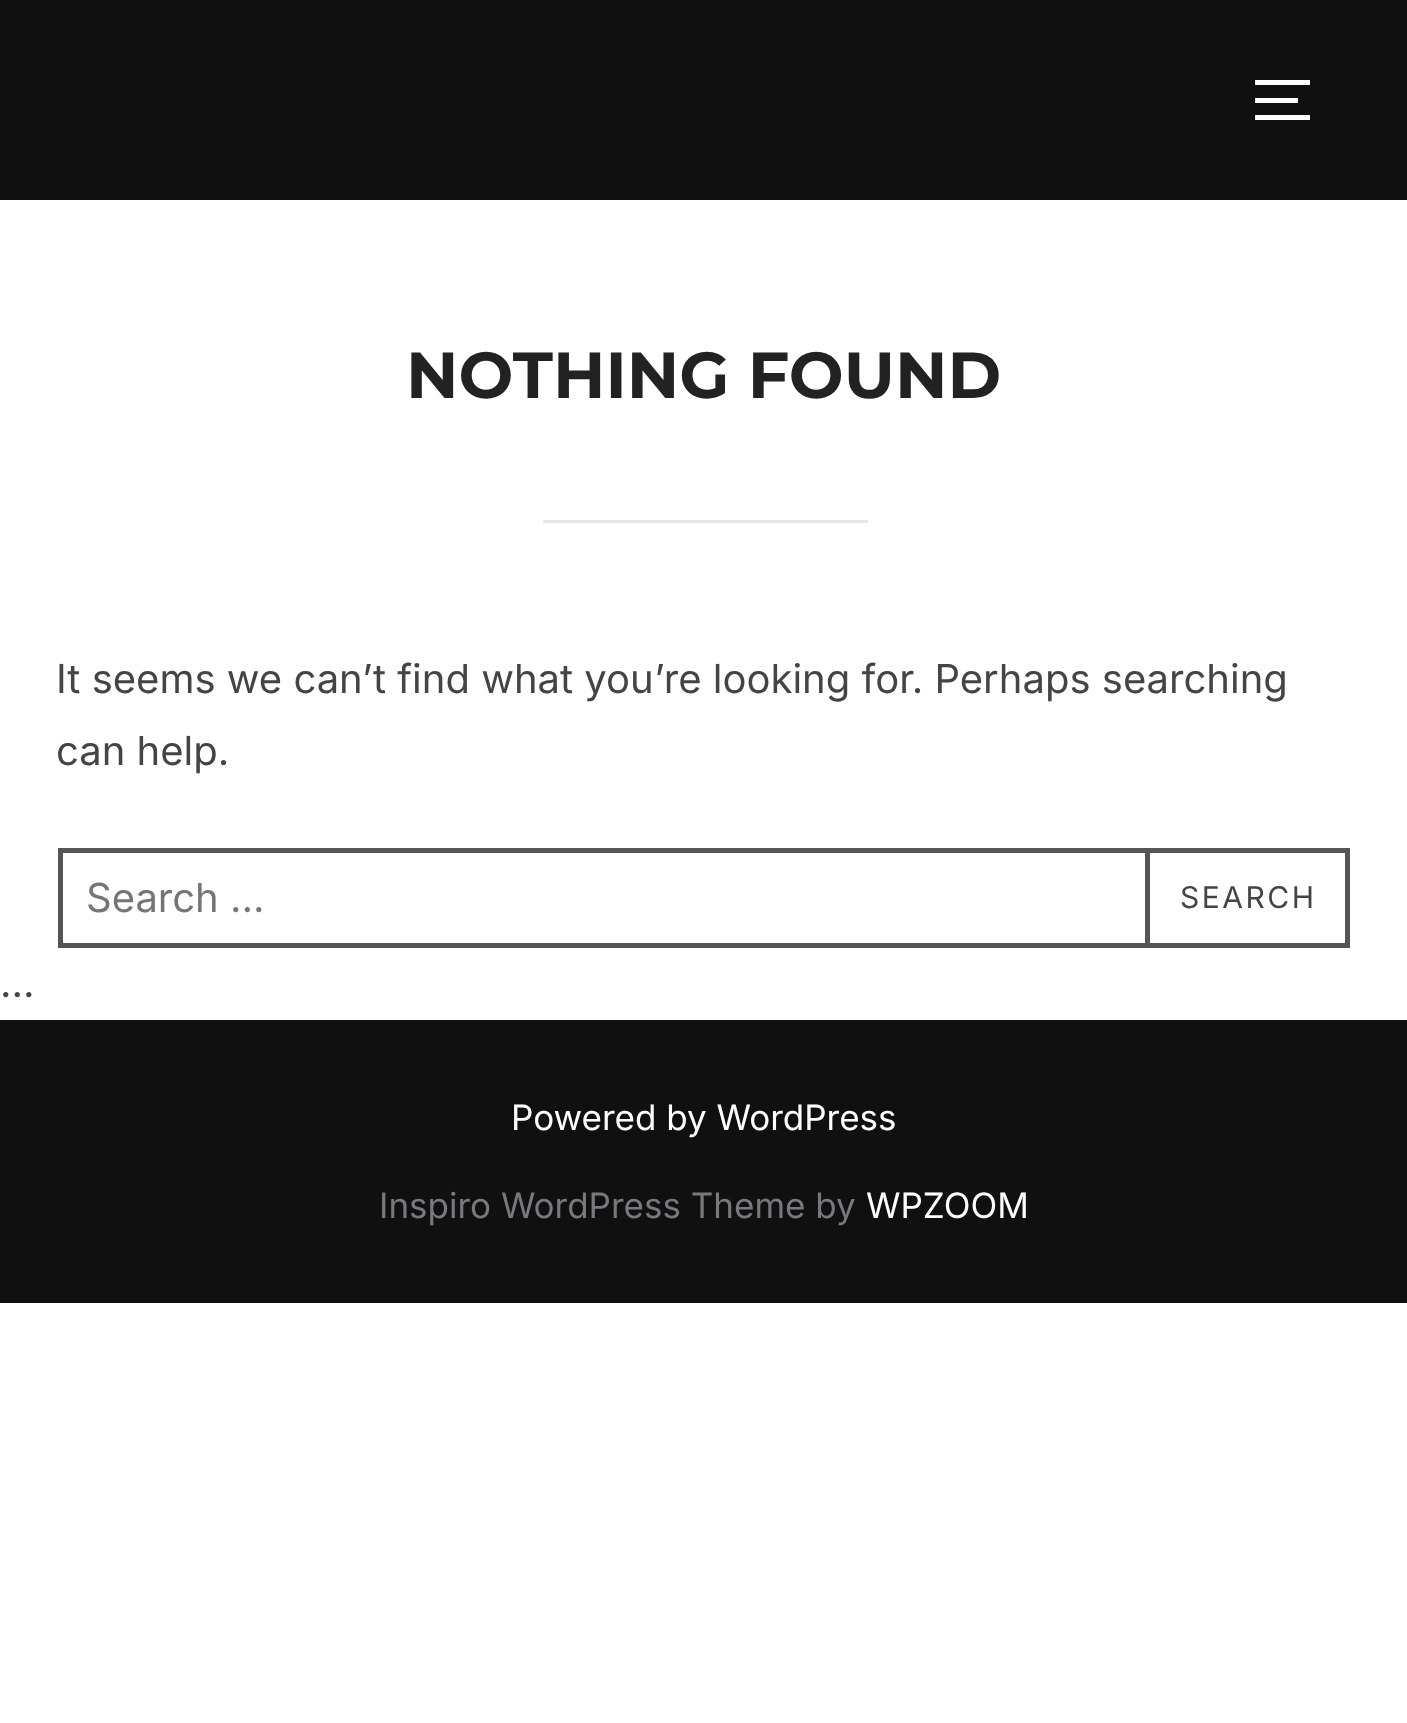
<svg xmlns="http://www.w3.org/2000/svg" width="1407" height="1723">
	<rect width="100%" height="100%" fill="#FFFFFF" />
	<rect x="0" y="0" width="1407" height="200" fill="#101010" />
	<rect x="1255" y="80" width="55" height="5" fill="#FFFFFF" />
	<rect x="1255" y="98" width="43" height="5" fill="#FFFFFF" />
	<rect x="1255" y="115" width="55" height="5" fill="#FFFFFF" />
	<text x="406" y="398" font-family="Montserrat" font-size="65" font-weight="700" fill="#222222">NOTHING FOUND</text>
	<rect x="543" y="520" width="325" height="3" fill="#E6E6E6" />
	<g font-family="Inter" font-size="40" fill="#444444">
		<text x="56" y="693">It seems we can’t find what you’re looking for. Perhaps searching</text>
		<text x="56" y="765">can help.</text>
	</g>
	<rect x="60.5" y="850.5" width="1287" height="95" fill="none" stroke="#565555" stroke-width="5" />
	<text x="86" y="912" font-family="Inter" font-size="40" fill="#757575">Search …</text>
	<rect x="1147.5" y="850.5" width="200" height="95" fill="none" stroke="#565555" stroke-width="5" />
	<text x="1180" y="908" font-family="Inter" font-size="30" letter-spacing="2.5" fill="#444444">SEARCH</text>
	<text x="0" y="997" font-family="Inter" font-size="40" fill="#444444">…</text>
	<rect x="0" y="1020" width="1407" height="283" fill="#101010" />
	<text x="511" y="1130" font-family="Inter" font-size="35" fill="#FFFFFF">Powered by WordPress</text>
	<text x="379" y="1218" font-family="Inter" font-size="35" fill="#78787F">Inspiro WordPress Theme by</text>
	<text x="866" y="1218" font-family="Inter" font-size="35" fill="#FFFFFF">WPZOOM</text>
</svg>
